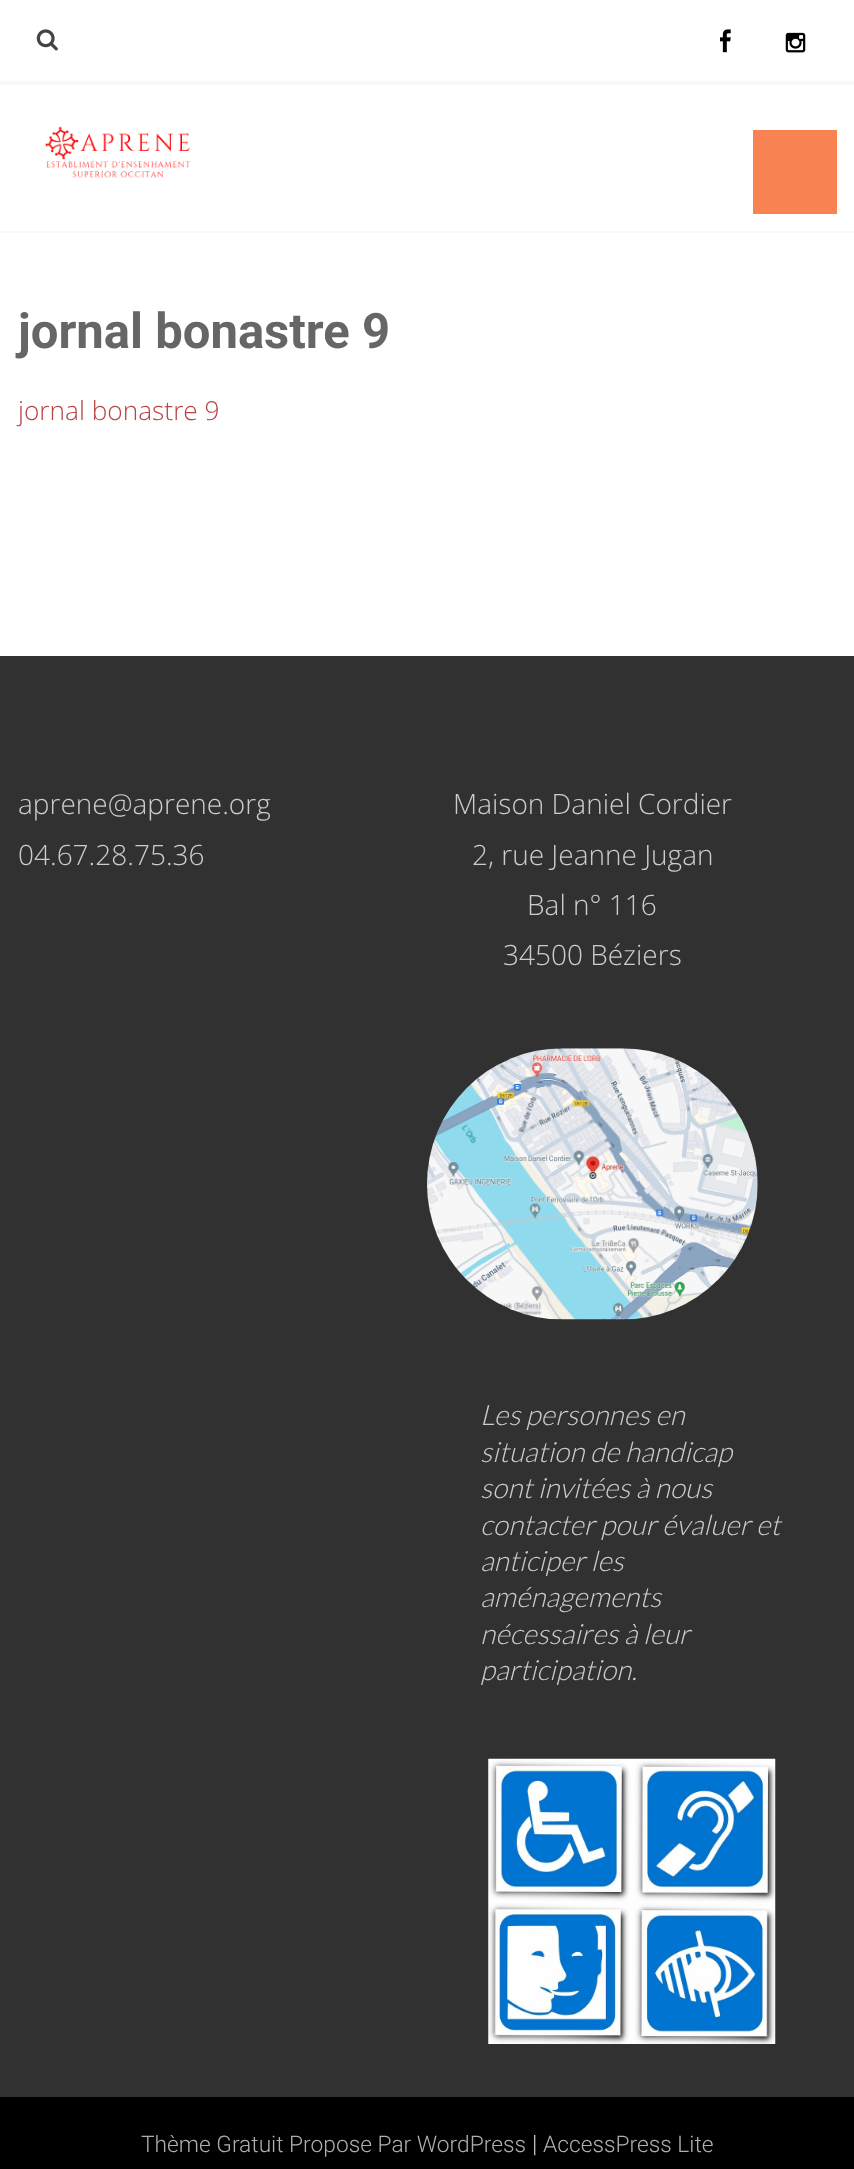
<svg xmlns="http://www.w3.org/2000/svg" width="854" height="2169">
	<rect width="100%" height="100%" fill="#FFFFFF" />
	<image x="36" y="29" width="22" height="22" href="assets/img1.png" />
	<image x="719" y="29" width="12" height="24" href="assets/img2.png" />
	<image x="785" y="32" width="21" height="21" href="assets/img3.png" />
	<rect x="0" y="81" width="854" height="4" fill="#F8F8F8" />
	<rect x="0" y="231" width="854" height="2" fill="#F8F8F8" />
	<image x="45" y="126" width="146" height="52" href="assets/img4.png" />
	<rect x="753" y="130" width="84" height="84" fill="#F98253" />
	<text x="18" y="348" font-family="Roboto" font-size="49" font-weight="700" fill="#666666">jornal bonastre 9</text>
	<text x="18" y="420" font-family="Open Sans" font-size="26.25" font-weight="300" fill="#B84446">jornal bonastre 9</text>
	<rect x="0" y="656" width="854" height="1441" fill="#313131" />
	<g font-family="Open Sans" font-size="28" font-weight="300" fill="#CCCCCC">
		<text x="18" y="814">aprene@aprene.org</text>
		<text x="18" y="865">04.67.28.75.36</text>
		<text x="453" y="814">Maison Daniel Cordier</text>
		<text x="472" y="865">2, rue Jeanne Jugan</text>
		<text x="527" y="915">Bal n° 116</text>
		<text x="503" y="965">34500 Béziers</text>
	</g>
	<image x="427" y="1048" width="331" height="272" href="assets/img5.png" />
	<g font-family="Lato" font-size="28" font-weight="300" font-style="italic" fill="#CCCCCC">
		<text x="480" y="1425">Les personnes en</text>
		<text x="480" y="1462">situation de handicap</text>
		<text x="480" y="1498">sont invitées à nous</text>
		<text x="480" y="1535">contacter pour évaluer et</text>
		<text x="480" y="1571">anticiper les</text>
		<text x="480" y="1607">aménagements</text>
		<text x="480" y="1644">nécessaires à leur</text>
		<text x="480" y="1680">participation.</text>
	</g>
	<image x="488" y="1758" width="288" height="286" href="assets/img6.png" />
	<rect x="0" y="2097" width="854" height="72" fill="#000000" />
	<text x="141" y="2152" font-family="Roboto" font-size="22.75" font-weight="300" fill="#AEAEAE">Thème Gratuit Propose Par WordPress</text>
	<text x="532" y="2152" font-family="Roboto" font-size="24" font-weight="300" fill="#CCCCCC">|</text>
	<text x="543" y="2152" font-family="Roboto" font-size="22.75" font-weight="300" fill="#AEAEAE">AccessPress Lite</text>
</svg>
